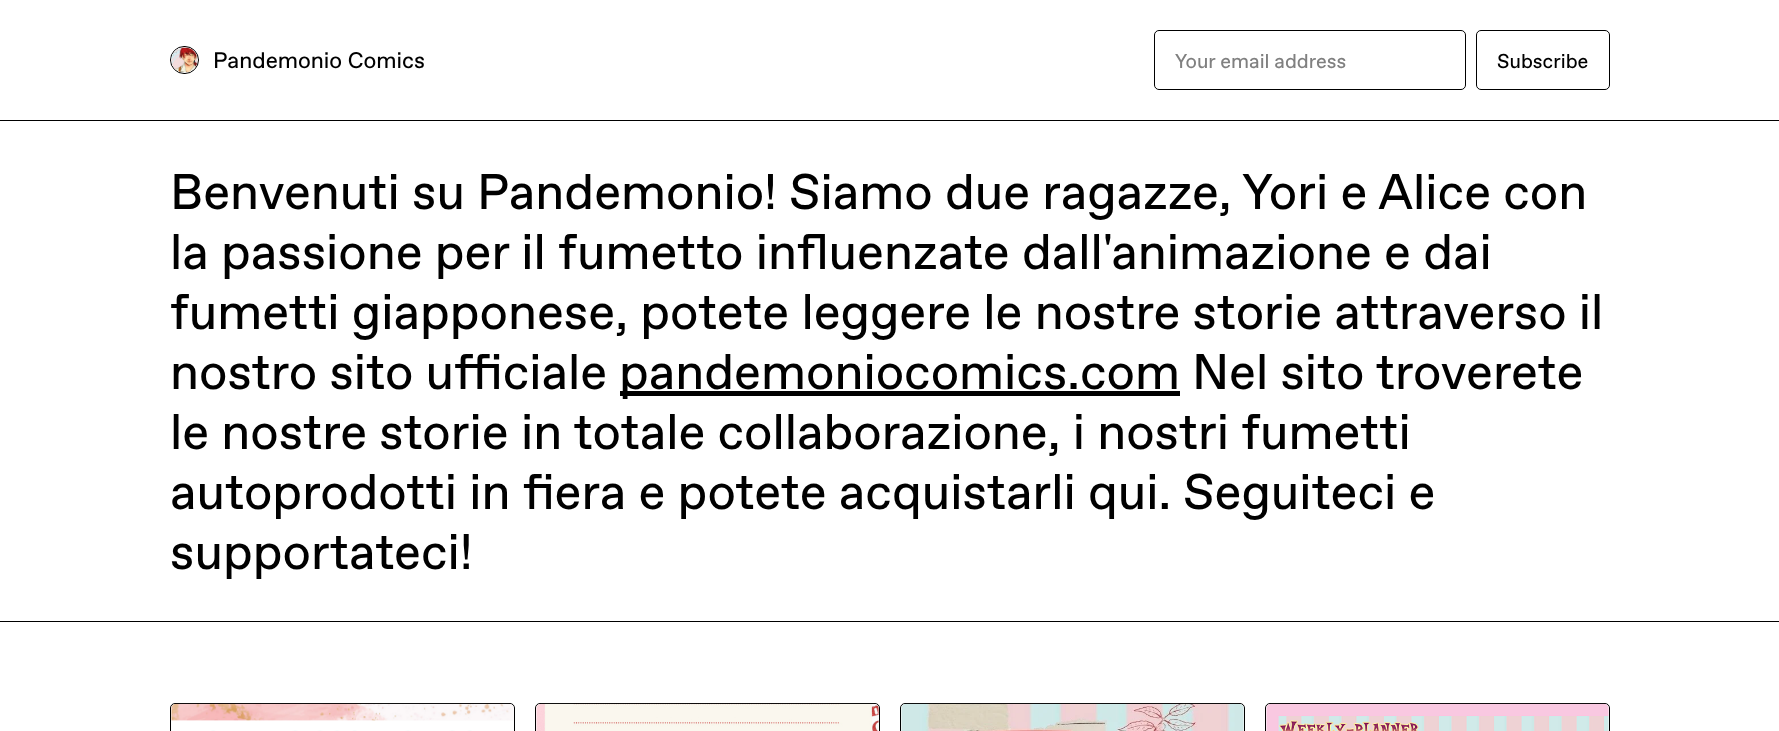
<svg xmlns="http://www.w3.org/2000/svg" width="1779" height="731">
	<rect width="100%" height="100%" fill="#FFFFFF" />
	<rect x="0" y="120" width="1779" height="1" fill="#000000" />
	<rect x="170.5" y="46.5" width="28" height="27" rx="13.5" fill="none" stroke="#000000" />
	<image x="171" y="47" width="27" height="26" href="assets/img1.png" />
	<text x="213" y="68" font-family="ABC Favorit" font-size="22.5" fill="#000000">Pandemonio Comics</text>
	<rect x="1154.5" y="30.5" width="311" height="59" rx="4.5" fill="none" stroke="#000000" />
	<text x="1175" y="68" font-family="ABC Favorit" font-size="20" fill="#808080">Your email address</text>
	<rect x="1476.5" y="30.5" width="133" height="59" rx="4.5" fill="none" stroke="#000000" />
	<text x="1497" y="68" font-family="ABC Favorit" font-size="20" fill="#000000">Subscribe</text>
	<rect x="0" y="621" width="1779" height="1" fill="#000000" />
	<g font-family="ABC Favorit" font-size="50" fill="#000000">
		<text x="170" y="209">Benvenuti su Pandemonio! Siamo due ragazze, Yori e Alice con</text>
		<text x="170" y="269">la passione per il fumetto influenzate dall'animazione e dai</text>
		<text x="170" y="329">fumetti giapponese, potete leggere le nostre storie attraverso il</text>
		<text x="170" y="389">nostro sito ufficiale</text>
	</g>
	<rect x="620" y="391" width="560" height="5" fill="#000000" />
	<g font-family="ABC Favorit" font-size="50" fill="#000000">
		<text x="619" y="389">pandemoniocomics.com Nel sito troverete</text>
		<text x="170" y="449">le nostre storie in totale collaborazione, i nostri fumetti</text>
		<text x="170" y="509">autoprodotti in fiera e potete acquistarli qui. Seguiteci e</text>
		<text x="170" y="569">supportateci!</text>
	</g>
	<rect x="170.5" y="703.5" width="344" height="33" rx="4.5" fill="none" stroke="#000000" />
	<image x="171" y="703" width="343" height="28" href="assets/img2.png" />
	<rect x="535.5" y="703.5" width="344" height="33" rx="4.5" fill="none" stroke="#000000" />
	<image x="536" y="703" width="343" height="28" href="assets/img3.png" />
	<rect x="900.5" y="703.5" width="344" height="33" rx="4.5" fill="none" stroke="#000000" />
	<image x="901" y="703" width="343" height="28" href="assets/img4.png" />
	<rect x="1265.5" y="703.5" width="344" height="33" rx="4.5" fill="none" stroke="#000000" />
	<image x="1266" y="703" width="343" height="28" href="assets/img5.png" />
</svg>
